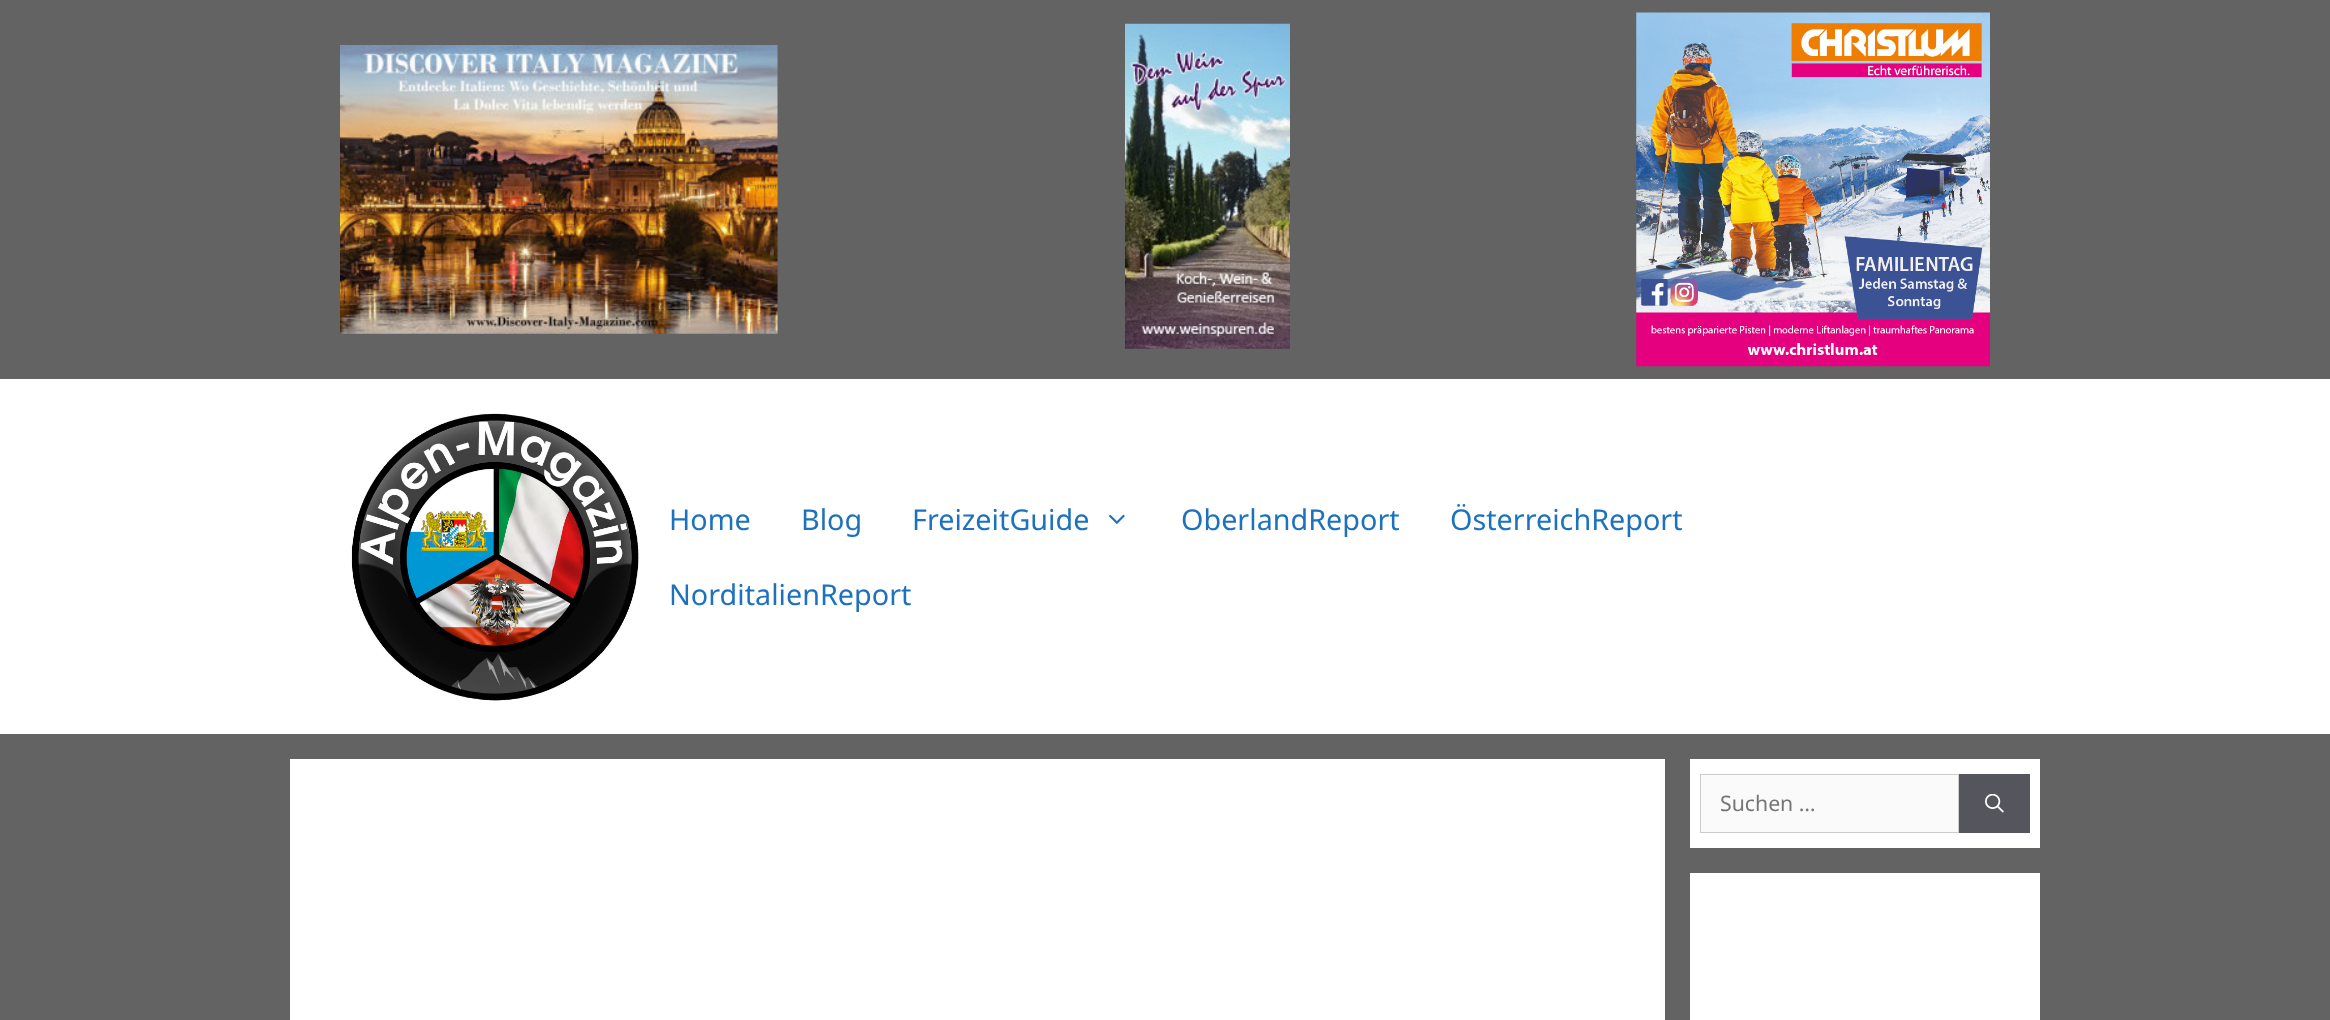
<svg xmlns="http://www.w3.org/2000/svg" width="2330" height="1020">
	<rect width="100%" height="100%" fill="#636363" />
	<image x="340" y="45" width="438" height="289" href="assets/img1.png" />
	<image x="1125" y="23" width="165" height="326" href="assets/img2.png" />
	<image x="1636" y="12" width="354" height="355" href="assets/img3.png" />
	<rect x="0" y="379" width="2330" height="355" fill="#FFFFFF" />
	<image x="350" y="413" width="289" height="288" href="assets/img4.png" />
	<g font-family="Noto Sans" font-size="28.75" fill="#1E72BD">
		<text x="669" y="530">Home</text>
		<text x="801" y="530">Blog</text>
		<text x="912" y="530">FreizeitGuide</text>
	</g>
	<image x="1109" y="514" width="16" height="10" href="assets/img5.png" />
	<g font-family="Noto Sans" font-size="28.75" fill="#1E72BD">
		<text x="1181" y="530">OberlandReport</text>
		<text x="1450" y="530">ÖsterreichReport</text>
		<text x="669" y="605">NorditalienReport</text>
	</g>
	<rect x="290" y="759" width="1375" height="261" fill="#FFFFFF" />
	<rect x="1690" y="759" width="350" height="89" fill="#FFFFFF" />
	<rect x="1700.5" y="774.5" width="258" height="58" fill="#FAFAFA" stroke="#CCCCCC" />
	<text x="1720" y="811" font-family="Noto Sans" font-size="21.25" fill="#757575">Suchen …</text>
	<rect x="1959" y="774" width="71" height="59" fill="#55555E" />
	<image x="1985" y="794" width="19" height="19" href="assets/img6.png" />
	<rect x="1690" y="873" width="350" height="147" fill="#FFFFFF" />
</svg>
